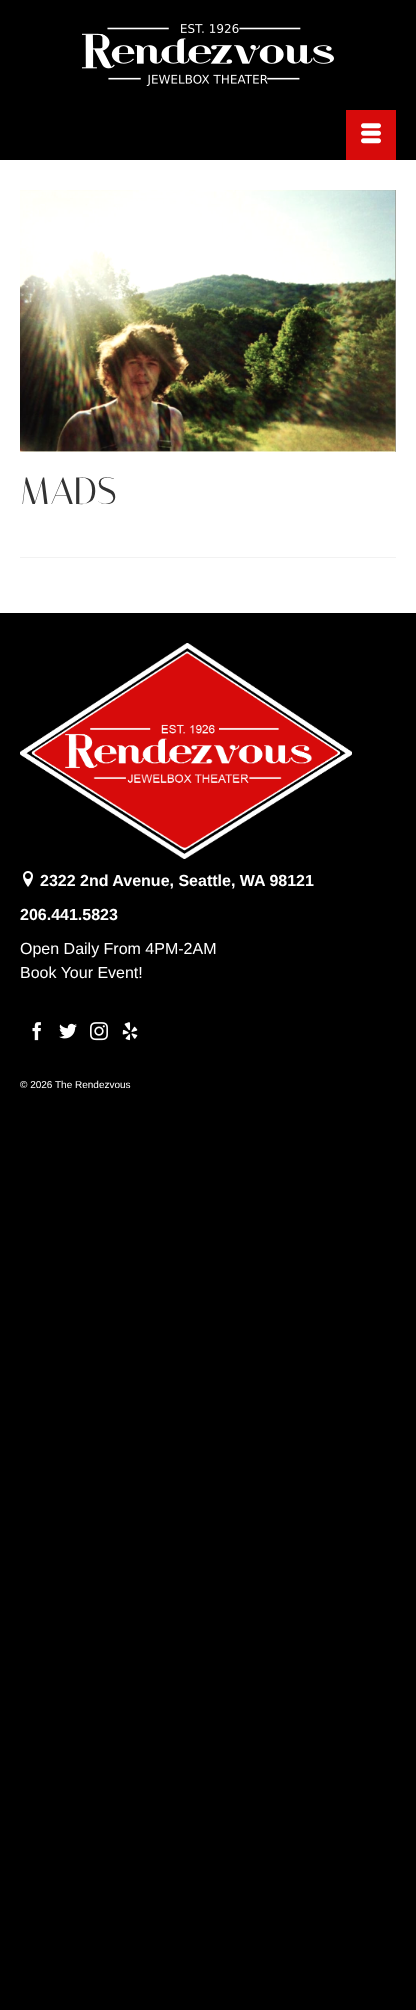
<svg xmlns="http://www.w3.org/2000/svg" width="416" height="2010">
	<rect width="100%" height="100%" fill="#000000" />
	<image x="82" y="24" width="252" height="62" href="assets/img1.png" />
	<rect x="346" y="110" width="50" height="50" fill="#D70B0B" />
	<image x="361" y="123" width="20" height="21" href="assets/img2.png" />
	<rect x="0" y="160" width="416" height="453" fill="#FFFFFF" />
	<image x="20" y="190" width="376" height="262" href="assets/img3.png" />
	<text x="20" y="504" font-family="Italiana" font-size="38" fill="#333333">MADS</text>
	<rect x="20" y="557" width="376" height="1" fill="#F2F2F2" />
	<image x="20" y="643" width="332" height="216" href="assets/img4.png" />
	<image x="23" y="871" width="10" height="16" href="assets/img5.png" />
	<g font-family="Liberation Sans" font-size="16" font-weight="700" fill="#FFFFFF">
		<text x="40" y="886">2322 2nd Avenue, Seattle, WA 98121</text>
		<text x="20" y="920">206.441.5823</text>
	</g>
	<g font-family="Liberation Sans" font-size="16" fill="#FFFFFF">
		<text x="20" y="954">Open Daily From 4PM-2AM</text>
		<text x="20" y="978">Book Your Event!</text>
	</g>
	<image x="32" y="1022" width="9" height="19" href="assets/img6.png" />
	<image x="59" y="1023" width="18" height="16" href="assets/img7.png" />
	<image x="90" y="1022" width="18" height="19" href="assets/img8.png" />
	<image x="122" y="1022" width="16" height="19" href="assets/img9.png" />
	<text x="20" y="1088" font-family="Liberation Sans" font-size="10" fill="#FFFFFF">© 2026 The Rendezvous</text>
</svg>
